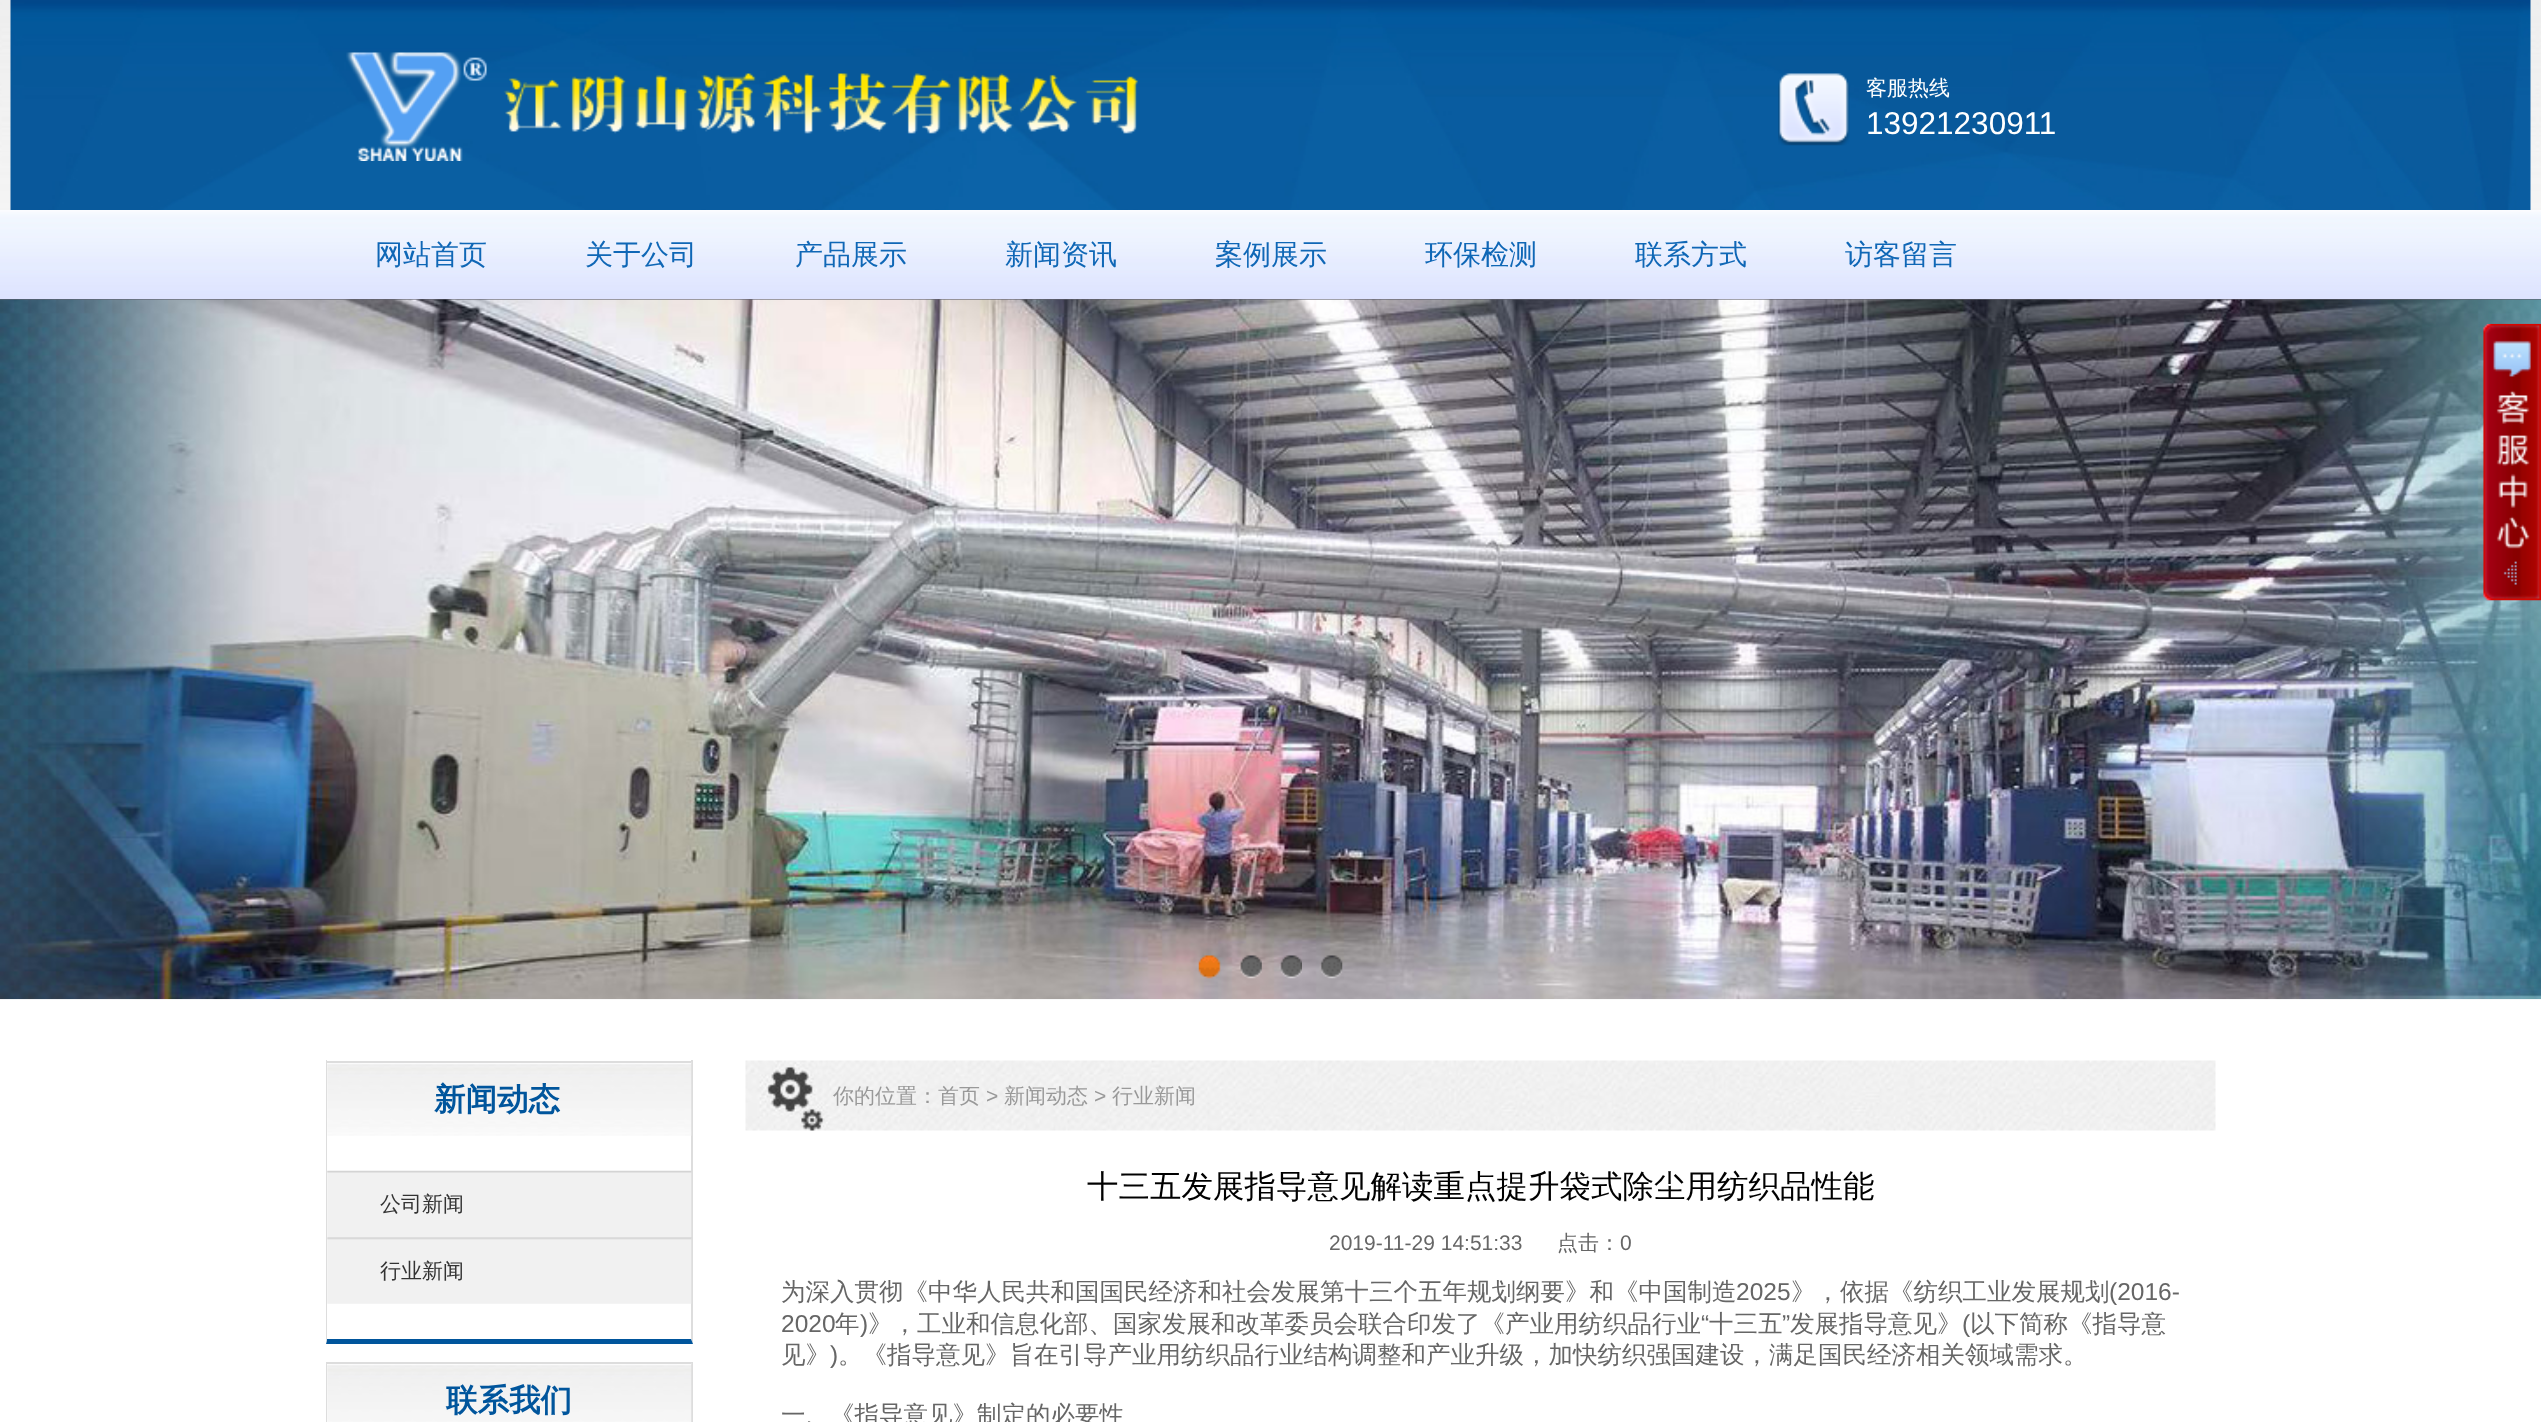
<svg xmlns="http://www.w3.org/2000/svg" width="2541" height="1422">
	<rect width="100%" height="100%" fill="#FFFFFF" />
	<image x="0" y="0" width="2541" height="210" href="assets/img1.png" />
	<image x="10" y="0" width="2521" height="210" href="assets/img2.png" />
	<image x="346" y="52" width="792" height="109" href="assets/img3.png" />
	<image x="1778" y="73" width="72" height="73" href="assets/img4.png" />
	<text x="1866" y="95" font-family="WenQuanYi Zen Hei" font-size="21" font-weight="500" fill="#FFFFFF">客服热线</text>
	<text x="1866" y="134" font-family="Liberation Sans" font-size="31.5" fill="#FFFFFF">13921230911</text>
	<rect x="0" y="299" width="2541" height="1" fill="#000000" />
	<image x="0" y="299" width="2541" height="701" href="assets/img6.png" />
	<image x="0" y="210" width="2541" height="90" href="assets/img5.png" />
	<g font-family="WenQuanYi Zen Hei" font-size="28" font-weight="500" fill="#0F67B6">
		<text x="375" y="264">网站首页</text>
		<text x="585" y="264">关于公司</text>
		<text x="795" y="264">产品展示</text>
		<text x="1005" y="264">新闻资讯</text>
		<text x="1215" y="264">案例展示</text>
		<text x="1425" y="264">环保检测</text>
		<text x="1635" y="264">联系方式</text>
		<text x="1845" y="264">访客留言</text>
	</g>
	<image x="1198" y="955" width="23" height="24" href="assets/img7.png" />
	<image x="1239" y="955" width="23" height="24" href="assets/img8.png" />
	<image x="1279" y="955" width="23" height="24" href="assets/img9.png" />
	<image x="1319" y="955" width="24" height="24" href="assets/img10.png" />
	<path d="M693 1060V1344L691 1339V1060Z" fill="#DDDDDD" />
	<path d="M693 1344H326L327 1339H691Z" fill="#00559C" />
	<path d="M326 1344V1060H327V1339Z" fill="#DDDDDD" />
	<image x="327" y="1062" width="365" height="74" href="assets/img11.png" />
	<rect x="327" y="1061" width="364" height="2" fill="#DDDDDD" />
	<text x="434" y="1110" font-family="WenQuanYi Zen Hei" font-size="31.5" font-weight="700" fill="#00559C">新闻动态</text>
	<image x="327" y="1170" width="365" height="67" href="assets/img12.png" />
	<text x="380" y="1211" font-family="WenQuanYi Zen Hei" font-size="21" font-weight="500" fill="#333333">公司新闻</text>
	<image x="327" y="1237" width="365" height="67" href="assets/img13.png" />
	<text x="380" y="1278" font-family="WenQuanYi Zen Hei" font-size="21" font-weight="500" fill="#333333">行业新闻</text>
	<path d="M693 1362V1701L691 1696V1362Z" fill="#DDDDDD" />
	<path d="M326 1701V1362H327V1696Z" fill="#DDDDDD" />
	<image x="327" y="1363" width="365" height="59" href="assets/img14.png" />
	<rect x="327" y="1362" width="364" height="2" fill="#DDDDDD" />
	<text x="446" y="1411" font-family="WenQuanYi Zen Hei" font-size="31.5" font-weight="700" fill="#00559C">联系我们</text>
	<image x="745" y="1060" width="1471" height="71" href="assets/img15.png" />
	<text x="833" y="1103" font-family="WenQuanYi Zen Hei" font-size="21" font-weight="500" fill="#999999">你的位置：首页</text>
	<text x="986" y="1103" font-family="Liberation Sans" font-size="21" fill="#999999">&gt;</text>
	<text x="1004" y="1103" font-family="WenQuanYi Zen Hei" font-size="21" font-weight="500" fill="#999999">新闻动态</text>
	<text x="1094" y="1103" font-family="Liberation Sans" font-size="21" fill="#999999">&gt;</text>
	<text x="1112" y="1103" font-family="WenQuanYi Zen Hei" font-size="21" font-weight="500" fill="#999999">行业新闻</text>
	<text x="1087" y="1197" font-family="WenQuanYi Zen Hei" font-size="31.5" font-weight="500" fill="#000000">十三五发展指导意见解读重点提升袋式除尘用纺织品性能</text>
	<text x="1329" y="1250" font-family="Liberation Sans" font-size="21" fill="#666666">2019-11-29 14:51:33</text>
	<text x="1557" y="1250" font-family="WenQuanYi Zen Hei" font-size="21" font-weight="500" fill="#666666">点击：</text>
	<text x="1620" y="1250" font-family="Liberation Sans" font-size="21" fill="#666666">0</text>
	<text x="781" y="1300" font-family="WenQuanYi Zen Hei" font-size="24.5" font-weight="500" fill="#666666">为深入贯彻《中华人民共和国国民经济和社会发展第十三个五年规划纲要》和《中国制造</text>
	<text x="1736" y="1300" font-family="Liberation Sans" font-size="24.5" fill="#666666">2025</text>
	<text x="1791" y="1300" font-family="WenQuanYi Zen Hei" font-size="24.5" font-weight="500" fill="#666666">》，依据《纺织工业发展规划</text>
	<g font-family="Liberation Sans" font-size="24.5" fill="#666666">
		<text x="2109" y="1300">(2016-</text>
		<text x="781" y="1332">2020</text>
	</g>
	<text x="835" y="1332" font-family="WenQuanYi Zen Hei" font-size="24.5" font-weight="500" fill="#666666">年</text>
	<text x="860" y="1332" font-family="Liberation Sans" font-size="24.5" fill="#666666">)</text>
	<text x="868" y="1332" font-family="WenQuanYi Zen Hei" font-size="24.5" font-weight="500" fill="#666666">》，工业和信息化部、国家发展和改革委员会联合印发了《产业用纺织品行业</text>
	<text x="1701" y="1332" font-family="Liberation Sans" font-size="24.5" fill="#666666">“</text>
	<text x="1709" y="1332" font-family="WenQuanYi Zen Hei" font-size="24.5" font-weight="500" fill="#666666">十三五</text>
	<text x="1782" y="1332" font-family="Liberation Sans" font-size="24.5" fill="#666666">”</text>
	<text x="1790" y="1332" font-family="WenQuanYi Zen Hei" font-size="24.5" font-weight="500" fill="#666666">发展指导意见》</text>
	<text x="1962" y="1332" font-family="Liberation Sans" font-size="24.5" fill="#666666">(</text>
	<g font-family="WenQuanYi Zen Hei" font-size="24.5" font-weight="500" fill="#666666">
		<text x="1970" y="1332">以下简称《指导意</text>
		<text x="781" y="1363">见》</text>
	</g>
	<text x="830" y="1363" font-family="Liberation Sans" font-size="24.5" fill="#666666">)</text>
	<g font-family="WenQuanYi Zen Hei" font-size="24.5" font-weight="500" fill="#666666">
		<text x="838" y="1363">。《指导意见》旨在引导产业用纺织品行业结构调整和产业升级，加快纺织强国建设，满足国民经济相关领域需求。</text>
		<text x="781" y="1423">一、《指导意见》制定的必要性</text>
	</g>
	<image x="2483" y="323" width="58" height="278" href="assets/img16.png" />
</svg>
